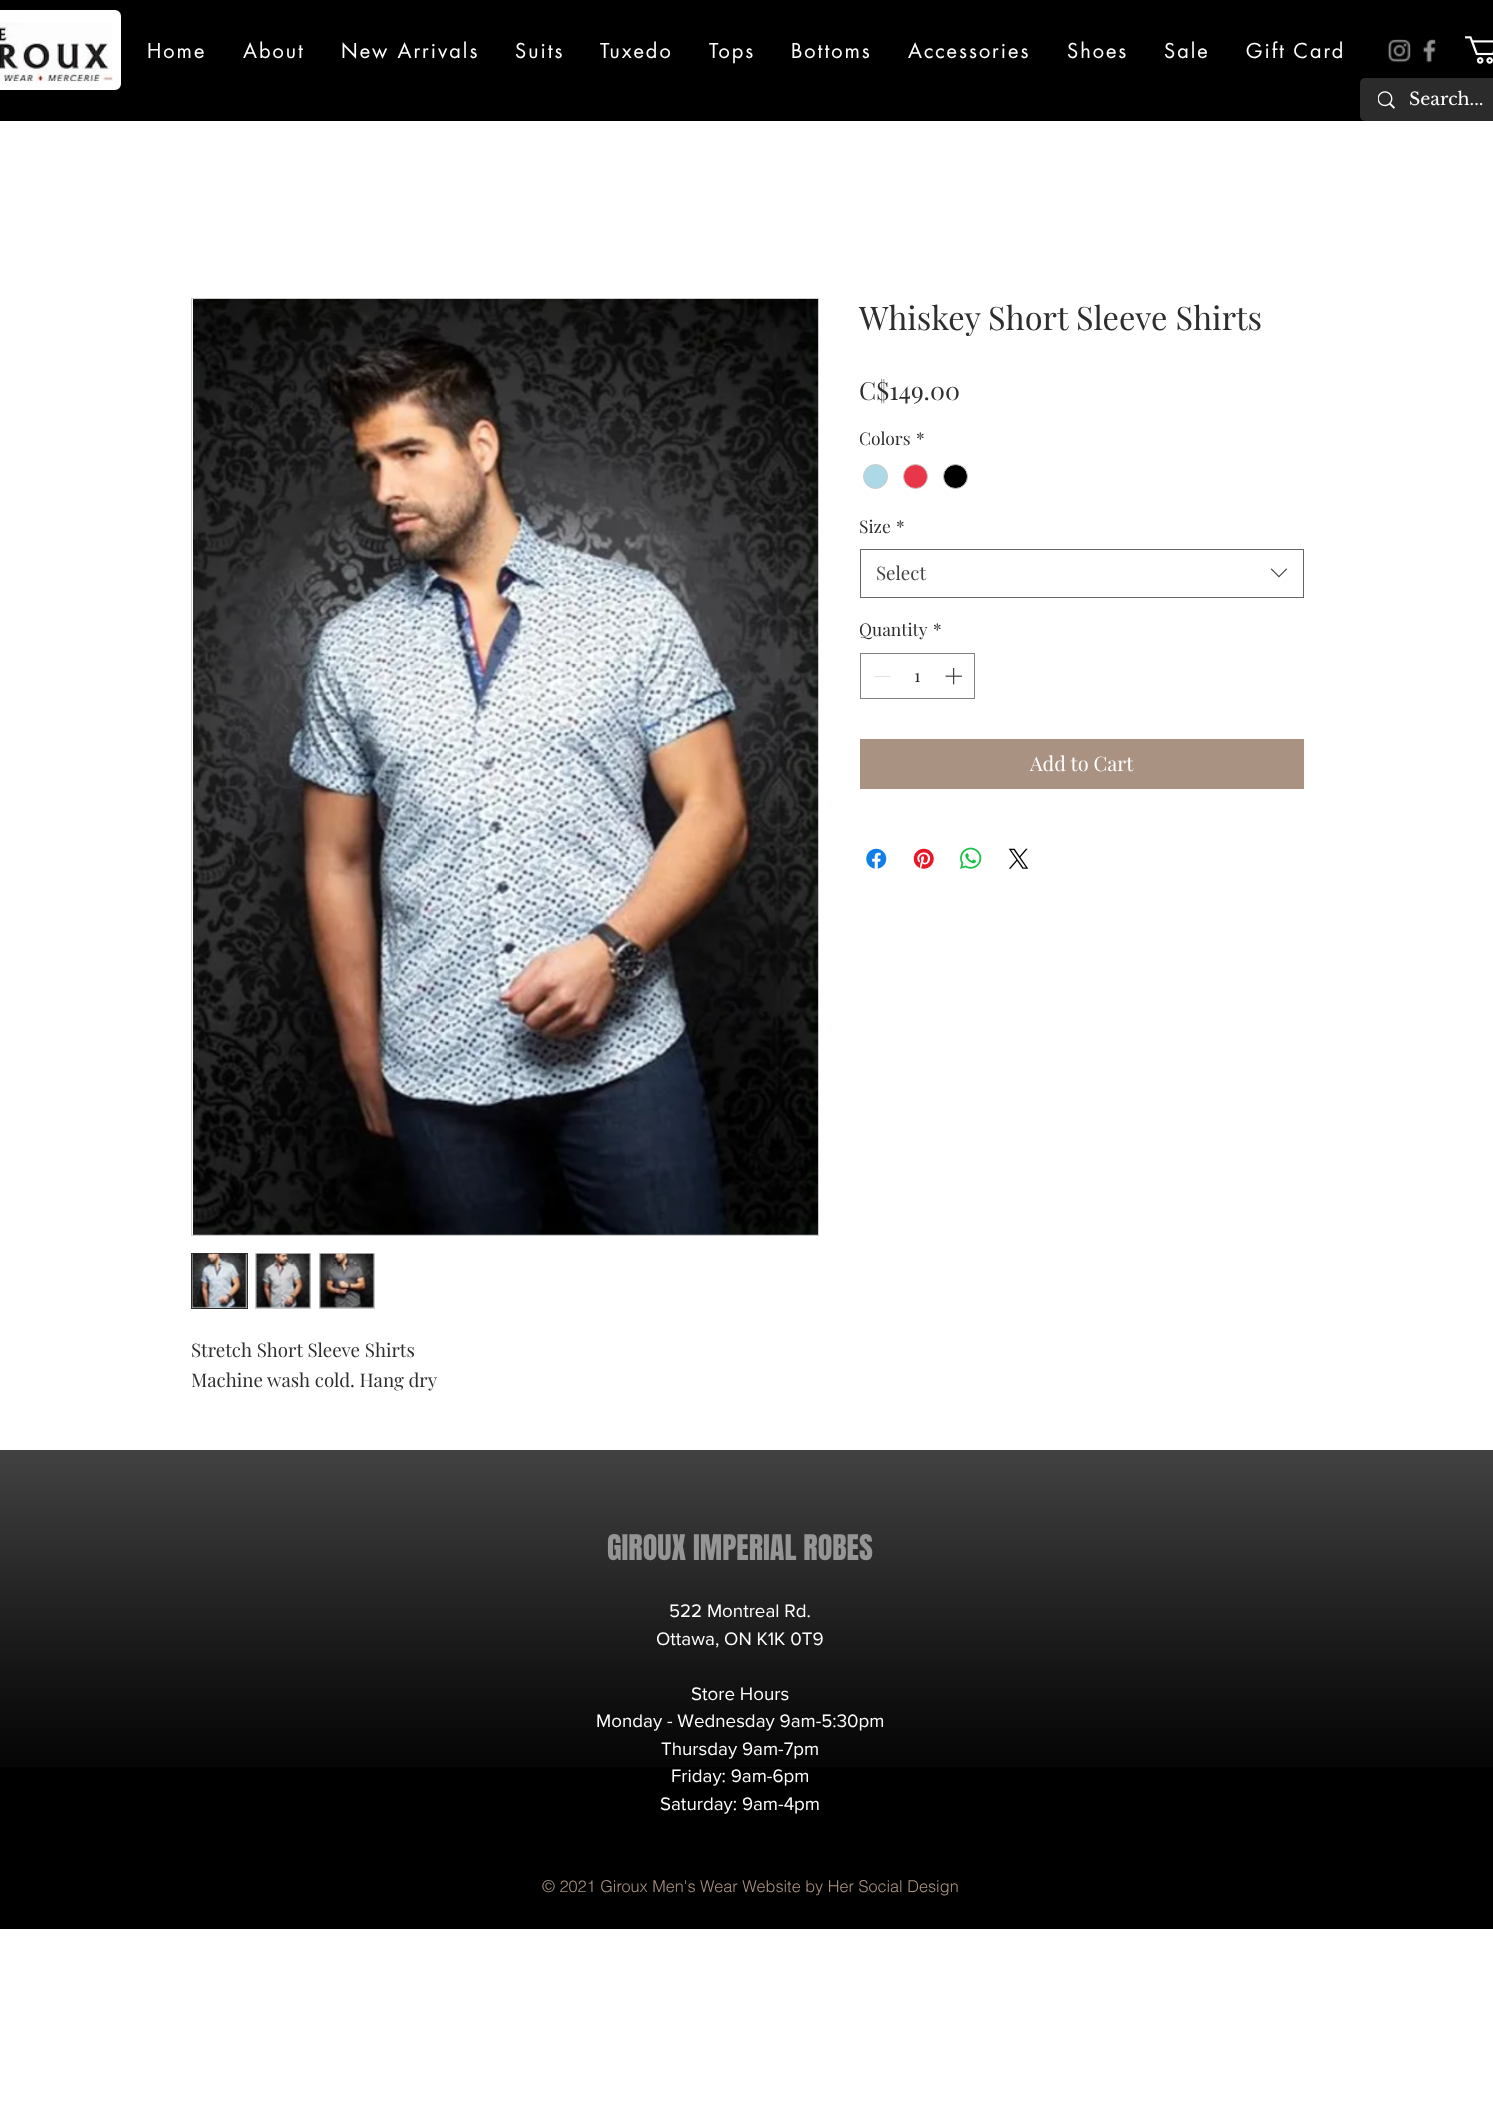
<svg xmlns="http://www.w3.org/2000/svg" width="1493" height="2118">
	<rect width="100%" height="100%" fill="#FFFFFF" />
	<rect x="0" y="0" width="1493" height="121" fill="#000000" />
	<rect x="-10.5" y="14.5" width="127" height="71" rx="1.5" fill="#FFFFFF" stroke="#FFFFFF" stroke-width="9" />
	<image x="0" y="22" width="113" height="60" href="assets/img1.png" />
	<g font-family="futura" font-size="20" letter-spacing="2" fill="#FFFFFF">
		<text x="147" y="58">Home</text>
		<text x="243" y="58">About</text>
		<text x="341" y="58">New Arrivals</text>
		<text x="515" y="58">Suits</text>
		<text x="600" y="58">Tuxedo</text>
		<text x="709" y="58">Tops</text>
		<text x="791" y="58">Bottoms</text>
		<text x="908" y="58">Accessories</text>
		<text x="1067" y="58">Shoes</text>
		<text x="1164" y="58">Sale</text>
		<text x="1246" y="58">Gift Card</text>
	</g>
	<image x="1387" y="39" width="24" height="24" href="assets/img2.png" />
	<image x="1422" y="39" width="14" height="24" href="assets/img3.png" />
	<image x="1465" y="36" width="28" height="28" href="assets/img4.png" />
	<rect x="1360" y="78" width="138" height="43" rx="5" fill="#2B2B2B" />
	<image x="1378" y="91" width="17" height="18" href="assets/img5.png" />
	<text x="1409" y="105" font-family="Libre Baskerville" font-size="17.5" fill="#FFFFFF">Search...</text>
	<text x="859" y="330" font-family="Playfair Display" font-size="32.5" fill="#2F2E2E">Whiskey Short Sleeve Shirts</text>
	<text x="859" y="400" font-family="Playfair Display" font-size="25" fill="#2F2E2E">C$149.00</text>
	<g font-family="Playfair Display" font-size="17.5" fill="#2F2E2E">
		<text x="859" y="445">Colors</text>
		<text x="916" y="445">*</text>
	</g>
	<circle cx="875.5" cy="476.5" r="12" fill="#ADD8E6" stroke="#C9C9C9" />
	<circle cx="915.5" cy="476.5" r="12" fill="#E73748" stroke="#C9C9C9" />
	<circle cx="955.5" cy="476.5" r="12" fill="#000000" stroke="#C9C9C9" />
	<g font-family="Playfair Display" font-size="17.5" fill="#2F2E2E">
		<text x="859" y="533">Size</text>
		<text x="896" y="533">*</text>
	</g>
	<rect x="860.5" y="549.5" width="443" height="48" fill="none" stroke="#666666" />
	<text x="876" y="580" font-family="Playfair Display" font-size="18.75" fill="#444444">Select</text>
	<image x="1270" y="568" width="18" height="10" href="assets/img6.png" />
	<g font-family="Playfair Display" font-size="17.5" fill="#2F2E2E">
		<text x="859" y="636">Quantity</text>
		<text x="933" y="636">*</text>
	</g>
	<rect x="860.5" y="653.5" width="114" height="45" fill="none" stroke="#828282" />
	<rect x="874" y="676" width="17" height="1" fill="#E3E3E3" />
	<text x="914" y="682" font-family="Playfair Display" font-size="17.5" fill="#2F2E2E">1</text>
	<image x="945" y="667" width="17" height="18" href="assets/img7.png" />
	<rect x="860" y="739" width="444" height="50" fill="#AA9283" />
	<text x="1030" y="771" font-family="Playfair Display" font-size="20" fill="#FFFFFF">Add to Cart</text>
	<image x="866" y="848" width="21" height="21" href="assets/img8.png" />
	<image x="913" y="848" width="21" height="21" href="assets/img9.png" />
	<image x="960" y="847" width="22" height="22" href="assets/img10.png" />
	<image x="1008" y="848" width="21" height="21" href="assets/img11.png" />
	<rect x="191.5" y="298.5" width="627" height="937" fill="none" stroke="#CCCCCC" />
	<image x="193" y="299" width="625" height="936" href="assets/img12.png" />
	<rect x="191.5" y="1253.5" width="56" height="55" fill="#CCCCCC" stroke="#2F2E2E" />
	<image x="192" y="1253" width="55" height="55" href="assets/img13.png" />
	<rect x="255" y="1253" width="56" height="56" fill="#CCCCCC" />
	<image x="255" y="1253" width="56" height="55" href="assets/img14.png" />
	<rect x="319" y="1253" width="56" height="56" fill="#CCCCCC" />
	<image x="319" y="1253" width="56" height="55" href="assets/img15.png" />
	<g font-family="Playfair Display" font-size="18.75" fill="#2F2E2E">
		<text x="191" y="1357">Stretch Short Sleeve Shirts</text>
		<text x="191" y="1387">Machine wash cold. Hang dry</text>
	</g>
	<rect x="0" y="1450" width="1493" height="479" fill="#000000" />
	<image x="0" y="1450" width="1493" height="317" href="assets/img16.png" />
	<text x="607" y="1560" font-family="Anton" font-size="30" fill="#959595">GIROUX IMPERIAL ROBES</text>
	<g font-family="'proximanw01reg'" font-size="18.75" fill="#FFFFFF">
		<text x="669" y="1617">522 Montreal Rd.</text>
		<text x="656" y="1645">Ottawa, ON K1K 0T9</text>
		<text x="691" y="1700">Store Hours</text>
		<text x="596" y="1727">Monday - Wednesday 9am-5:30pm</text>
		<text x="661" y="1755">Thursday 9am-7pm</text>
		<text x="671" y="1782">Friday: 9am-6pm</text>
		<text x="660" y="1810">Saturday: 9am-4pm</text>
	</g>
	<text x="542" y="1892" font-family="helvetica" font-size="16.25" font-weight="300" fill="#AA9283">© 2021 Giroux Men's Wear Website by Her Social Design</text>
</svg>
